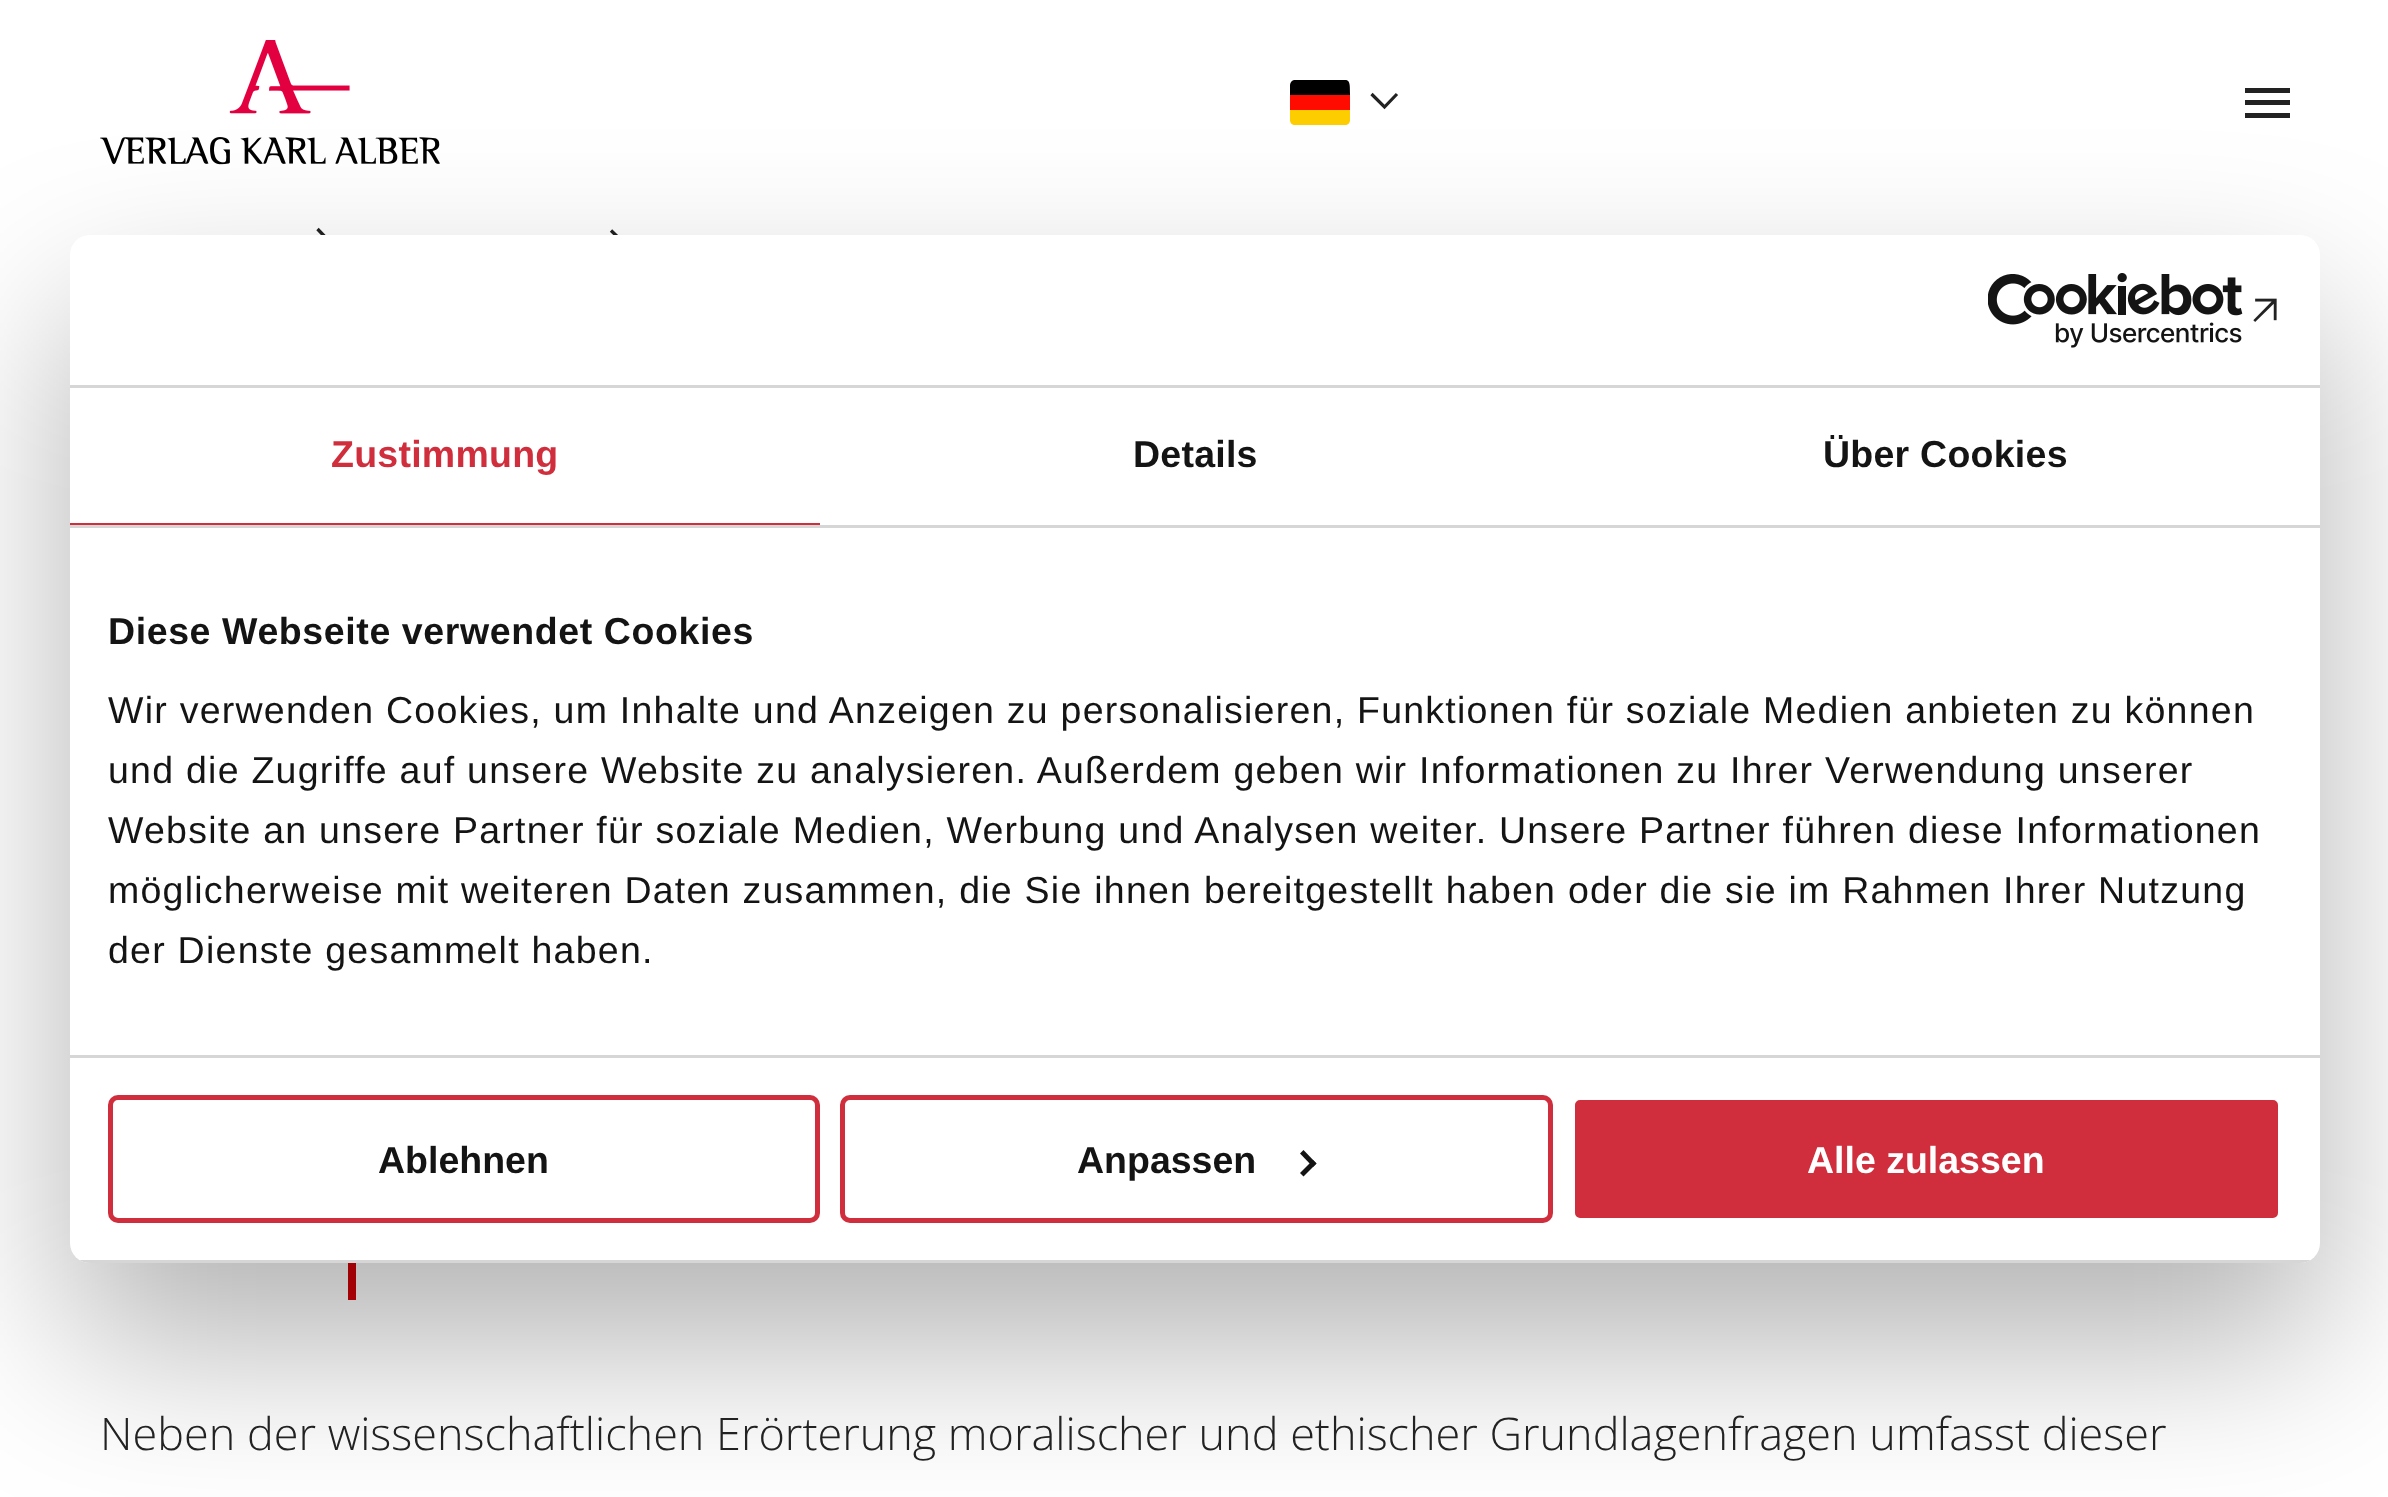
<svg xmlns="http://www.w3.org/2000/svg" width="2388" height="1497">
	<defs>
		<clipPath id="clip1"><rect x="1290" y="80" width="60" height="45" /></clipPath>
		<clipPath id="clip2"><rect x="70" y="235" width="2250" height="1028" rx="20" /></clipPath>
	</defs>
	<rect width="100%" height="100%" fill="#FFFFFF" />
	<image x="100" y="40" width="340" height="125" href="assets/img3.png" />
	<g clip-path="url(#clip1)">
		<path d="M1295 80H1328C1350 80 1350 76 1350 95H1290C1290 91 1288 80 1295 80Z" fill="#000000" />
	</g>
	<rect x="1290" y="95" width="60" height="15" fill="#FF0B00" />
	<path d="M1290 110H1350V120C1350 123 1348 125 1345 125H1295C1292 125 1290 123 1290 120Z" fill="#FDCD00" />
	<path d="M1397 94L1384.5 107L1371.5 94" fill="none" stroke="#222222" stroke-width="3.2" />
	<rect x="2245" y="88" width="45" height="5" fill="#222222" />
	<rect x="2245" y="100" width="45" height="5" fill="#222222" />
	<rect x="2245" y="113" width="45" height="5" fill="#222222" />
	<path d="M317.5 229L330.5 242.5L317.5 255.5" fill="none" stroke="#222222" stroke-width="3.3" />
	<path d="M611 230.5L624.5 243.5L611 257" fill="none" stroke="#222222" stroke-width="3.3" />
	<rect x="348" y="1263" width="8" height="37" fill="#D30209" />
	<rect x="70" y="315" width="2250" height="1028" rx="20" fill="#000000" fill-opacity="0.3" filter="blur(85px)" />
	<rect x="70" y="235" width="2250" height="1028" rx="20" fill="#FFFFFF" />
	<rect x="70" y="385" width="2250" height="3" fill="#D6D6D6" />
	<image x="1988" y="273" width="255" height="75" href="assets/img1.png" />
	<image x="2253" y="298" width="24" height="24" href="assets/img2.png" />
	<rect x="70" y="525" width="2250" height="3" fill="#D6D6D6" />
	<rect x="70" y="523" width="750" height="2" fill="#D02E3D" />
	<text x="331" y="467" font-family="Liberation Sans" font-size="37.5" font-weight="700" letter-spacing="0.25" fill="#D02E3D">Zustimmung</text>
	<g font-family="Liberation Sans" font-size="37.5" font-weight="700" letter-spacing="0.25" fill="#141414">
		<text x="1133" y="467">Details</text>
		<text x="1823" y="467">Über Cookies</text>
	</g>
	<rect x="70" y="1055" width="2250" height="3" fill="#D6D6D6" />
	<text x="108" y="644" font-family="Liberation Sans" font-size="37.5" font-weight="700" letter-spacing="0.6" fill="#141414">Diese Webseite verwendet Cookies</text>
	<g font-family="Liberation Sans" font-size="37.5" letter-spacing="1.25" fill="#141414">
		<text x="108" y="723">Wir verwenden Cookies, um Inhalte und Anzeigen zu personalisieren, Funktionen für soziale Medien anbieten zu können</text>
		<text x="108" y="783">und die Zugriffe auf unsere Website zu analysieren. Außerdem geben wir Informationen zu Ihrer Verwendung unserer</text>
		<text x="108" y="843">Website an unsere Partner für soziale Medien, Werbung und Analysen weiter. Unsere Partner führen diese Informationen</text>
		<text x="108" y="903">möglicherweise mit weiteren Daten zusammen, die Sie ihnen bereitgestellt haben oder die sie im Rahmen Ihrer Nutzung</text>
		<text x="108" y="963">der Dienste gesammelt haben.</text>
	</g>
	<g clip-path="url(#clip2)">
		<rect x="79" y="1260" width="2232" height="3" fill="#D6D6D6" />
	</g>
	<rect x="110.5" y="1097.5" width="707" height="123" rx="7.5" fill="none" stroke="#D02E3D" stroke-width="5" />
	<text x="378" y="1173" font-family="Liberation Sans" font-size="37.5" font-weight="700" fill="#141414">Ablehnen</text>
	<rect x="842.5" y="1097.5" width="708" height="123" rx="7.5" fill="none" stroke="#D02E3D" stroke-width="5" />
	<text x="1077" y="1173" font-family="Liberation Sans" font-size="37.5" font-weight="700" fill="#141414">Anpassen</text>
	<path d="M1303.5 1150L1316.5 1163.5L1313 1167L1300 1153.5Z" fill="#141414" />
	<path d="M1313 1160L1316.5 1163.5L1303.5 1176.5L1300 1173Z" fill="#141414" />
	<rect x="1572.5" y="1097.5" width="708" height="123" rx="7.5" fill="#D02E3D" stroke="#FFFFFF" stroke-width="5" />
	<text x="1807" y="1173" font-family="Liberation Sans" font-size="37.5" font-weight="700" fill="#FFFFFF">Alle zulassen</text>
	<text x="100" y="1450" font-family="Open Sans" font-size="45" font-weight="300" fill="#222222">Neben der wissenschaftlichen Erörterung moralischer und ethischer Grundlagenfragen umfasst dieser</text>
</svg>
